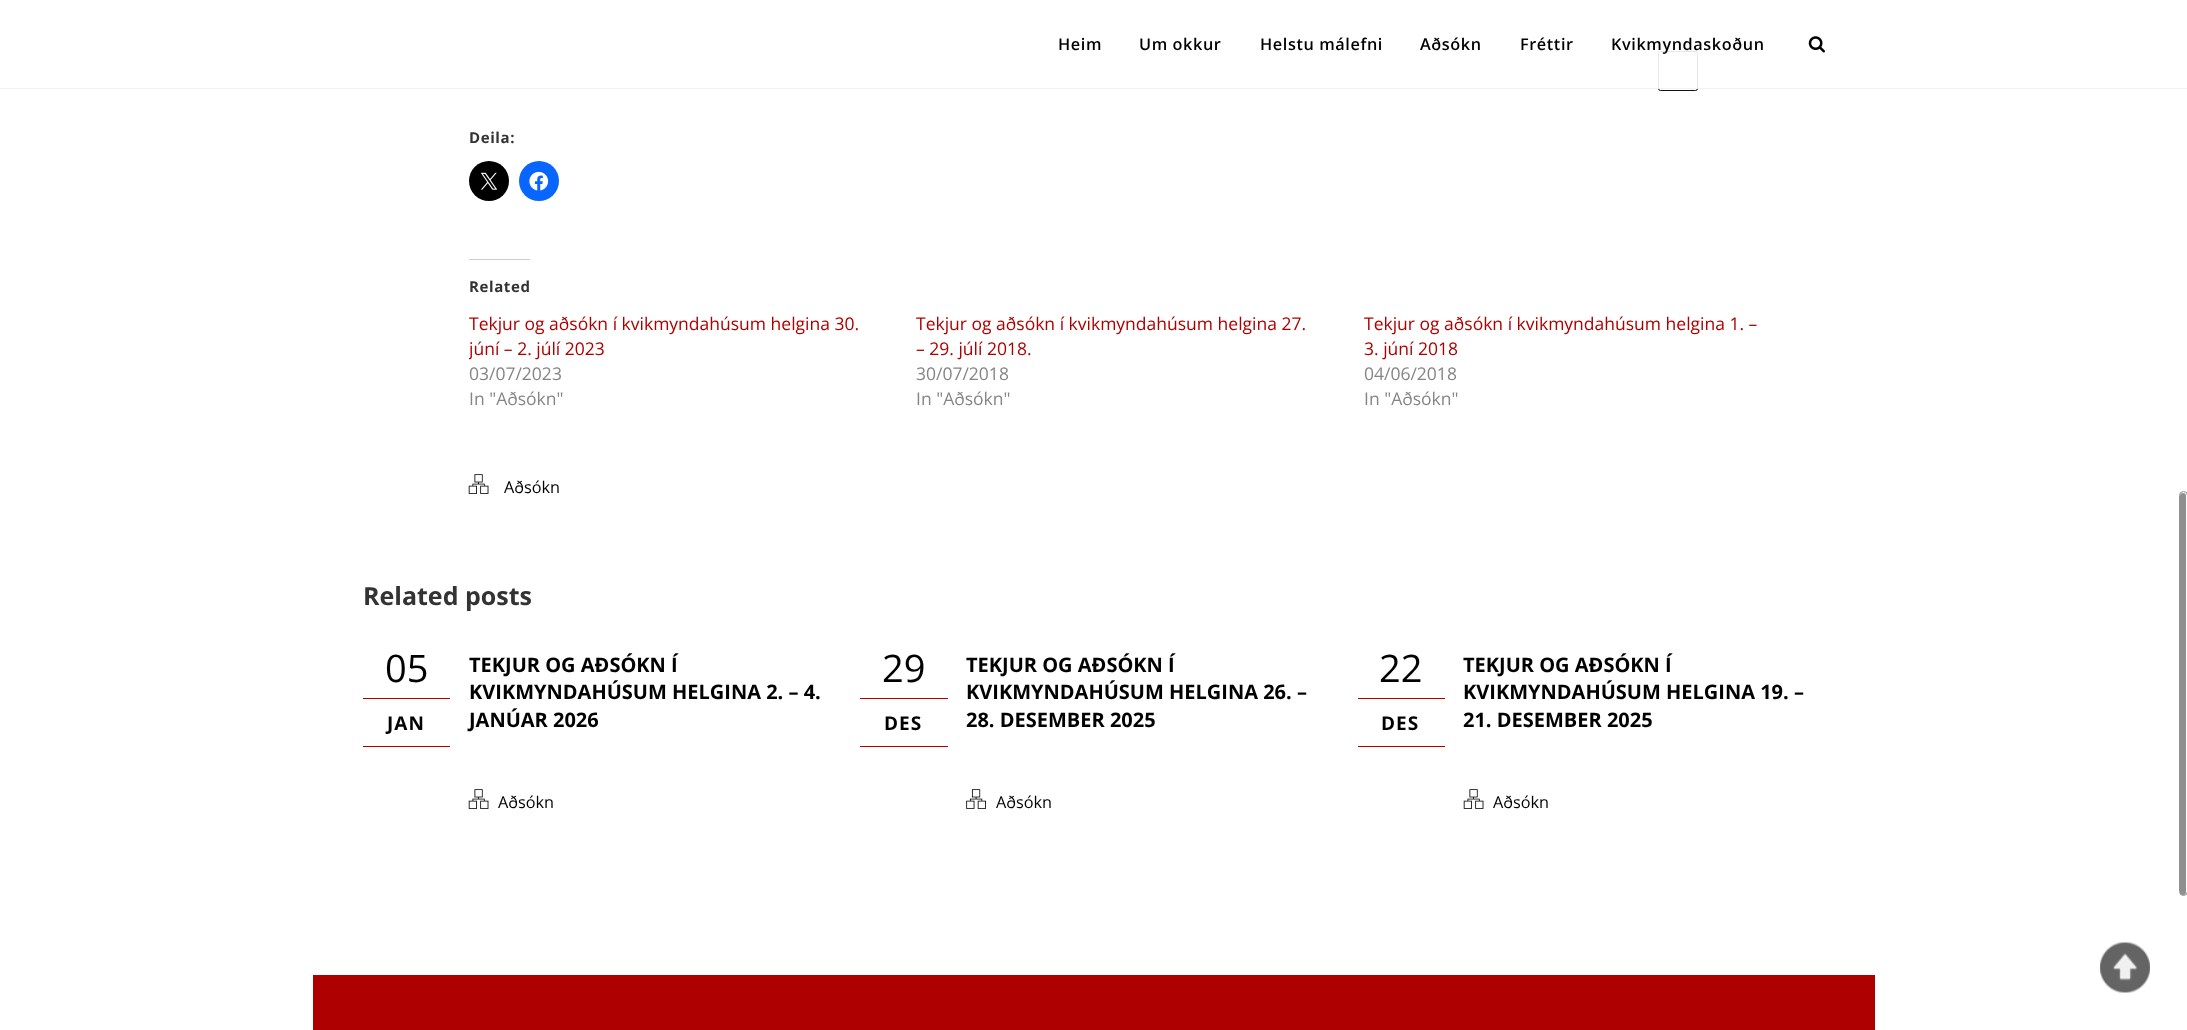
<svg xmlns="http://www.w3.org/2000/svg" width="2187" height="1030">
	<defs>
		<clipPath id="clip1"><rect x="469" y="311" width="402" height="50" /></clipPath>
	</defs>
	<rect width="100%" height="100%" fill="#FFFFFF" />
	<rect x="469" y="0" width="1386" height="26" fill="#F9F9F9" />
	<rect x="1658.5" y="51.5" width="39" height="39" rx="2" fill="none" stroke="#111111" />
	<rect x="469" y="0" width="1386" height="89" fill="#FFFFFF" fill-opacity="0.9" />
	<rect x="0" y="88" width="2187" height="1" fill="#000000" fill-opacity="0.05" />
	<g font-family="Open Sans" font-size="16.25" font-weight="600" letter-spacing="0.6" fill="#000000">
		<text x="1058" y="50">Heim</text>
		<text x="1139" y="50">Um okkur</text>
		<text x="1260" y="50">Helstu málefni</text>
		<text x="1420" y="50">Aðsókn</text>
		<text x="1520" y="50">Fréttir</text>
		<text x="1611" y="50">Kvikmyndaskoðun</text>
	</g>
	<image x="1808" y="36" width="17" height="17" href="assets/img1.png" />
	<text x="469" y="143" font-family="Open Sans" font-size="15" font-weight="700" letter-spacing="0.6" fill="#333333">Deila:</text>
	<circle cx="489" cy="181" r="20" fill="#000000" />
	<image x="480" y="172" width="18" height="18" href="assets/img2.png" />
	<circle cx="539" cy="181" r="20" fill="#0866FF" />
	<image x="529" y="171" width="20" height="20" href="assets/img3.png" />
	<rect x="469" y="259" width="61" height="1" fill="#CCCCCC" />
	<text x="469" y="292" font-family="Open Sans" font-size="15" font-weight="700" letter-spacing="0.6" fill="#333333">Related</text>
	<text x="469" y="330" font-family="Open Sans" font-size="17.5" fill="#AF0000">Tekjur og aðsókn í kvikmyndahúsum helgina 30.</text>
	<g clip-path="url(#clip1)">
		<text x="469" y="355" font-family="Open Sans" font-size="17.5" fill="#AF0000">júní – 2. júlí 2023</text>
	</g>
	<g font-family="Open Sans" font-size="17.5" fill="#858585">
		<text x="469" y="380">03/07/2023</text>
		<text x="469" y="405">In "Aðsókn"</text>
	</g>
	<g font-family="Open Sans" font-size="17.5" fill="#AF0000">
		<text x="916" y="330">Tekjur og aðsókn í kvikmyndahúsum helgina 27.</text>
		<text x="916" y="355">– 29. júlí 2018.</text>
	</g>
	<g font-family="Open Sans" font-size="17.5" fill="#858585">
		<text x="916" y="380">30/07/2018</text>
		<text x="916" y="405">In "Aðsókn"</text>
	</g>
	<g font-family="Open Sans" font-size="17.5" fill="#AF0000">
		<text x="1364" y="330">Tekjur og aðsókn í kvikmyndahúsum helgina 1. –</text>
		<text x="1364" y="355">3. júní 2018</text>
	</g>
	<g font-family="Open Sans" font-size="17.5" fill="#858585">
		<text x="1364" y="380">04/06/2018</text>
		<text x="1364" y="405">In "Aðsókn"</text>
	</g>
	<image x="468" y="474" width="21" height="20" href="assets/img4.png" />
	<text x="504" y="493" font-family="Open Sans" font-size="16.25" fill="#000000">Aðsókn</text>
	<text x="363" y="605" font-family="Open Sans" font-size="25" font-weight="700" fill="#333333">Related posts</text>
	<text x="385" y="682" font-family="Open Sans" font-size="38" fill="#000000">05</text>
	<rect x="363" y="698" width="87" height="1" fill="#AF0000" />
	<rect x="363" y="746" width="87" height="1" fill="#AF0000" />
	<text x="387" y="730" font-family="Open Sans" font-size="19" font-weight="700" letter-spacing="1" fill="#000000">JAN</text>
	<g font-family="Open Sans" font-size="20" font-weight="700" fill="#000000">
		<text x="469" y="672">TEKJUR OG AÐSÓKN Í</text>
		<text x="469" y="699">KVIKMYNDAHÚSUM HELGINA 2. – 4.</text>
		<text x="469" y="727">JANÚAR 2026</text>
	</g>
	<image x="468" y="789" width="21" height="20" href="assets/img4.png" />
	<text x="498" y="808" font-family="Open Sans" font-size="16.25" fill="#000000">Aðsókn</text>
	<text x="882" y="682" font-family="Open Sans" font-size="38" fill="#000000">29</text>
	<rect x="860" y="698" width="88" height="1" fill="#AF0000" />
	<rect x="860" y="746" width="88" height="1" fill="#AF0000" />
	<text x="884" y="730" font-family="Open Sans" font-size="19" font-weight="700" letter-spacing="1" fill="#000000">DES</text>
	<g font-family="Open Sans" font-size="20" font-weight="700" fill="#000000">
		<text x="966" y="672">TEKJUR OG AÐSÓKN Í</text>
		<text x="966" y="699">KVIKMYNDAHÚSUM HELGINA 26. –</text>
		<text x="966" y="727">28. DESEMBER 2025</text>
	</g>
	<image x="966" y="789" width="20" height="20" href="assets/img5.png" />
	<text x="996" y="808" font-family="Open Sans" font-size="16.25" fill="#000000">Aðsókn</text>
	<text x="1379" y="682" font-family="Open Sans" font-size="38" fill="#000000">22</text>
	<rect x="1358" y="698" width="87" height="1" fill="#AF0000" />
	<rect x="1358" y="746" width="87" height="1" fill="#AF0000" />
	<text x="1381" y="730" font-family="Open Sans" font-size="19" font-weight="700" letter-spacing="1" fill="#000000">DES</text>
	<g font-family="Open Sans" font-size="20" font-weight="700" fill="#000000">
		<text x="1463" y="672">TEKJUR OG AÐSÓKN Í</text>
		<text x="1463" y="699">KVIKMYNDAHÚSUM HELGINA 19. –</text>
		<text x="1463" y="727">21. DESEMBER 2025</text>
	</g>
	<image x="1463" y="789" width="21" height="20" href="assets/img4.png" />
	<text x="1493" y="808" font-family="Open Sans" font-size="16.25" fill="#000000">Aðsókn</text>
	<rect x="313" y="975" width="1562" height="55" fill="#AF0000" />
	<rect x="2180" y="493" width="6" height="402" rx="3" fill="#8F8F8F" />
	<rect x="2179.5" y="491.5" width="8" height="404" rx="4" fill="none" stroke="#8F8F8F" />
	<image x="2100" y="942" width="50" height="51" href="assets/img6.png" />
</svg>
